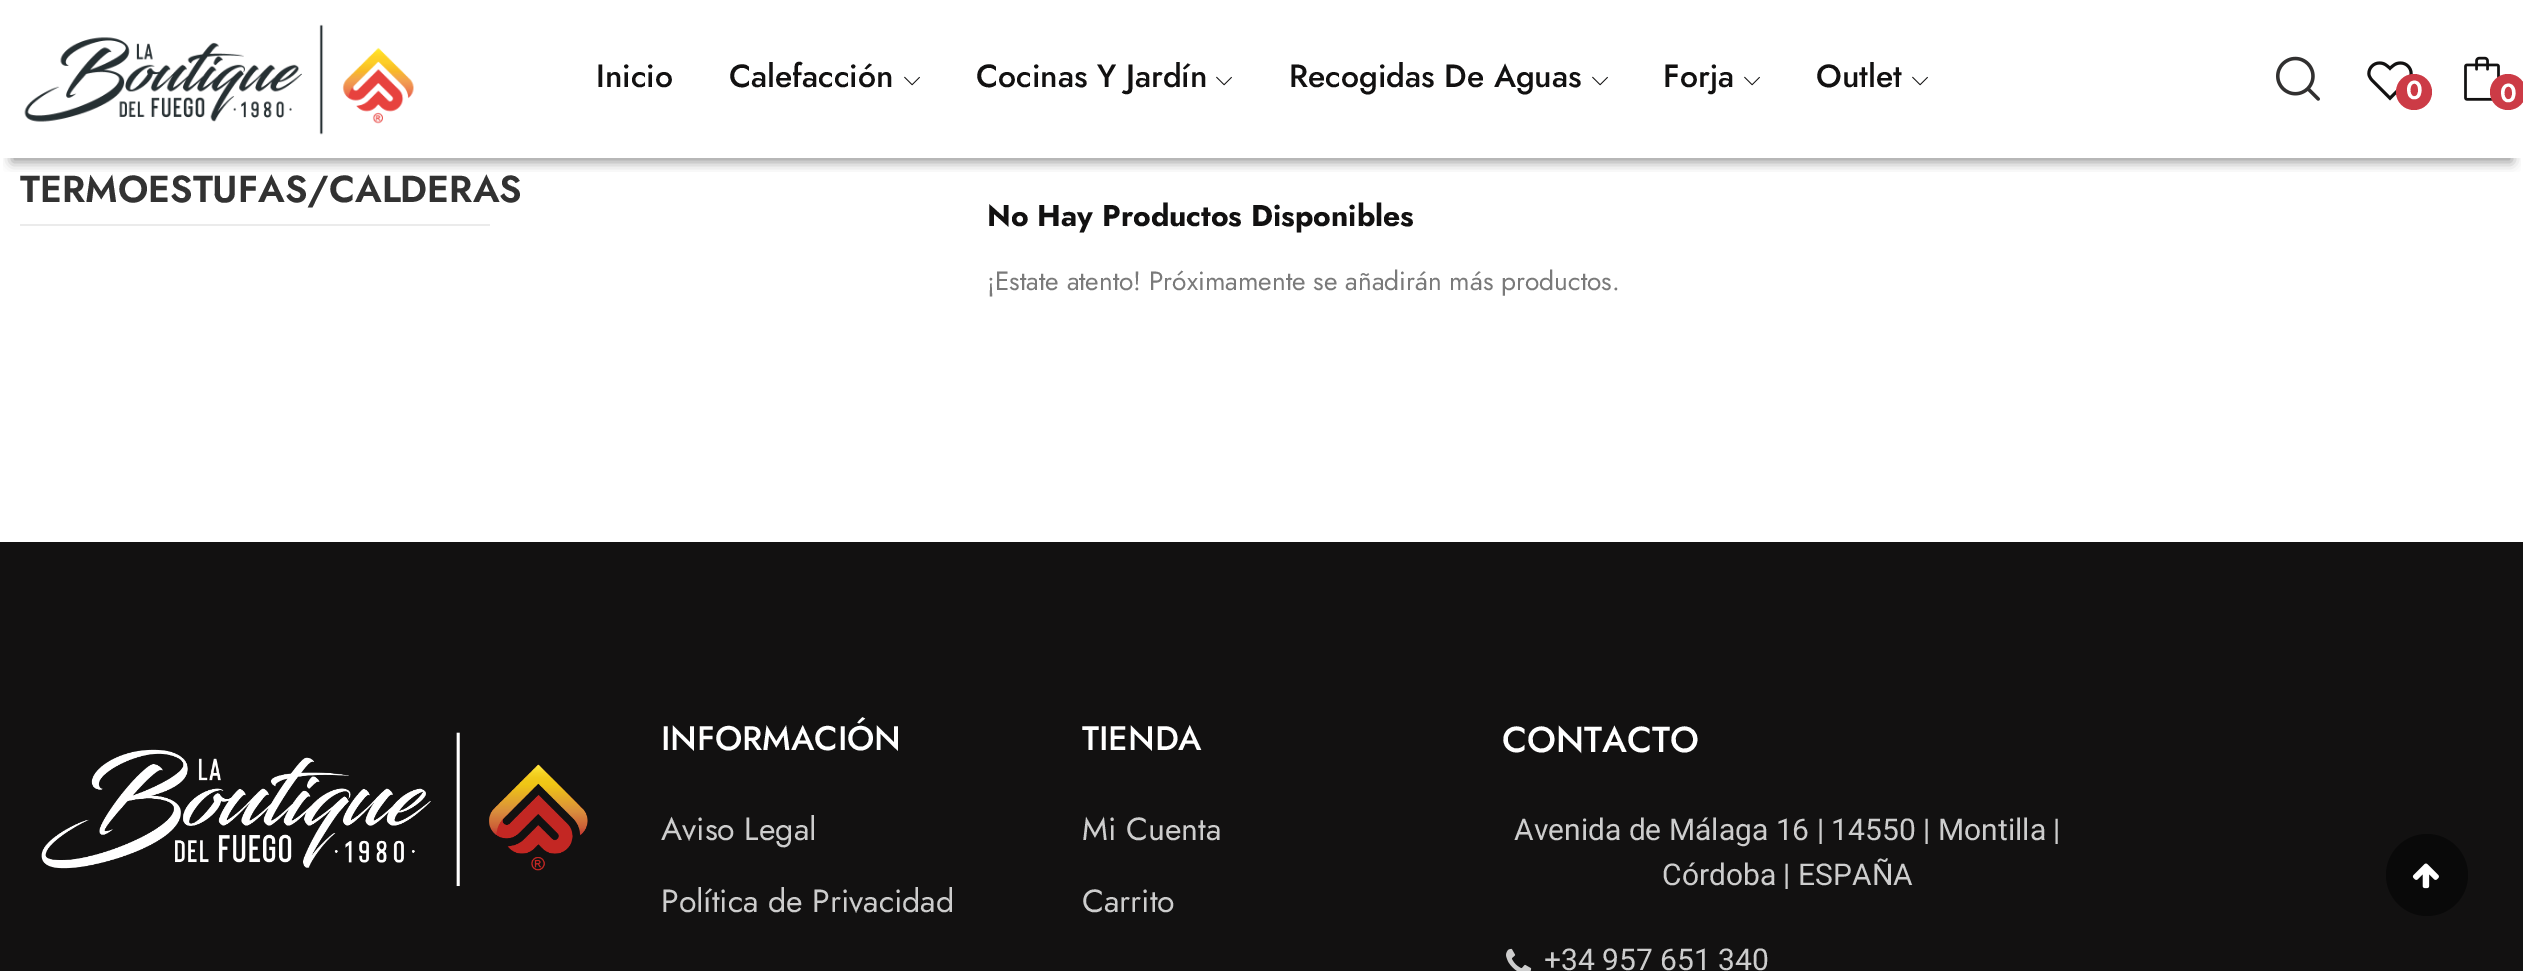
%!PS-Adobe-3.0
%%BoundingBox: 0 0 2523 971
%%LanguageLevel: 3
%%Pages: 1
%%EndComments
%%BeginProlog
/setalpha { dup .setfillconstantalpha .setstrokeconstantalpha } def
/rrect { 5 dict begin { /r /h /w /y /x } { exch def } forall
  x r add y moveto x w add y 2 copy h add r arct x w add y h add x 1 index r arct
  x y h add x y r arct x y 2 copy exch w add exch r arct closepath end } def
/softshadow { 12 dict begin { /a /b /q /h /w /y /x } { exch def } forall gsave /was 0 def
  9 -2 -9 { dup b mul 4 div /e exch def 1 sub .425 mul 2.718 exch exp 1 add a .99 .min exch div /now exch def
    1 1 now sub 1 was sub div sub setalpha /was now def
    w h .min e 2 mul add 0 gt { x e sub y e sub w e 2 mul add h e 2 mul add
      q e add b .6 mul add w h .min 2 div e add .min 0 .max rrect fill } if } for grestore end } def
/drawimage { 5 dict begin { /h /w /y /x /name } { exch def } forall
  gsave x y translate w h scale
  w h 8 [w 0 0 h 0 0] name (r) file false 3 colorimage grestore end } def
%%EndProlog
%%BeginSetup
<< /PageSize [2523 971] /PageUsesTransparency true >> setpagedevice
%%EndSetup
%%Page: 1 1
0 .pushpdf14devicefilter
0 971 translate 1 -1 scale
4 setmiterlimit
1 setgray
0 0 2523 971 rectfill
gsave
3 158 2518 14 rectclip
0 setgray
12 28 2500 134 0 6 0.4 softshadow
grestore
(images/1.raw) 24 24 390 111 drawimage
(images/2.raw) 904 76 16 10 drawimage
(images/2.raw) 1216 76 16 10 drawimage
(images/2.raw) 1592 76 16 10 drawimage
(images/2.raw) 1744 76 16 10 drawimage
(images/2.raw) 1912 76 16 10 drawimage
(images/3.raw) 2276 56 44 45 drawimage
(images/4.raw) 2367 61 46 40 drawimage
0.8 0.231 0.275 setrgbcolor
newpath 2414 92 18 0 360 arc closepath fill
(images/5.raw) 2464 56 36 45 drawimage
newpath 2508 92 18 0 360 arc closepath fill
0.922 setgray
20 224 470 2 rectfill
0.071 0.067 0.067 setrgbcolor
0 542 2523 429 rectfill
(images/6.raw) 41 732 547 155 drawimage
(images/7.raw) 1506 948 26 23 drawimage
0.035 setgray
newpath 2427 875 41 0 360 arc closepath fill
(images/8.raw) 2412 863 27 26 drawimage
/Jost-Medium [32 0 0 -32 0 0] selectfont
0.071 0.067 0.067 setrgbcolor
596 87 moveto (Inicio) show
729 87 moveto (Calefacción) show
976 87 moveto (Cocinas Y Jardín) show
1289 87 moveto (Recogidas De Aguas) show
1663 87 moveto (Forja) show
1816 87 moveto (Outlet) show
/Jost-SemiBold [26 0 0 -26 0 0] selectfont
1 setgray
2406 99 moveto (0) show
2500 102 moveto (0) show
/Jost-SemiBold [37.5 0 0 -37.5 0 0] selectfont
0.196 setgray
20 202 moveto (TERMOESTUFAS/CALDERAS) show
/Jost-Bold [30 0 0 -30 0 0] selectfont
0.071 0.067 0.067 setrgbcolor
987 226 moveto (No Hay Productos Disponibles) show
/Jost-Regular [26.25 0 0 -26.25 0 0] selectfont
0.478 setgray
987 290 moveto (¡Estate atento! Próximamente se añadirán más productos.) show
/Jost-Medium [34 0 0 -34 0 0] selectfont
1 setgray
661 750 moveto (INFORMACIÓN) show
/Jost-Regular [32 0 0 -32 0 0] selectfont
0.804 setgray
661 840 moveto (Aviso Legal) show
661 912 moveto (Política de Privacidad) show
/Jost-Medium [34 0 0 -34 0 0] selectfont
1 setgray
1082 750 moveto (TIENDA) show
/Jost-Regular [32 0 0 -32 0 0] selectfont
0.804 setgray
1082 840 moveto (Mi Cuenta) show
1082 912 moveto (Carrito) show
/Jost-Medium [36 0 0 -36 0 0] selectfont
1 setgray
1502 752 moveto (CONTACTO) show
/Roboto-Regular [30 0 0 -30 0 0] selectfont
0.804 setgray
1514 840 moveto (Avenida de Málaga 16 | 14550 | Montilla |) show
1662 885 moveto (Córdoba | ESPAÑA) show
1544 970 moveto (+34 957 651 340) show
.poppdf14devicefilter showpage
%%EOF
